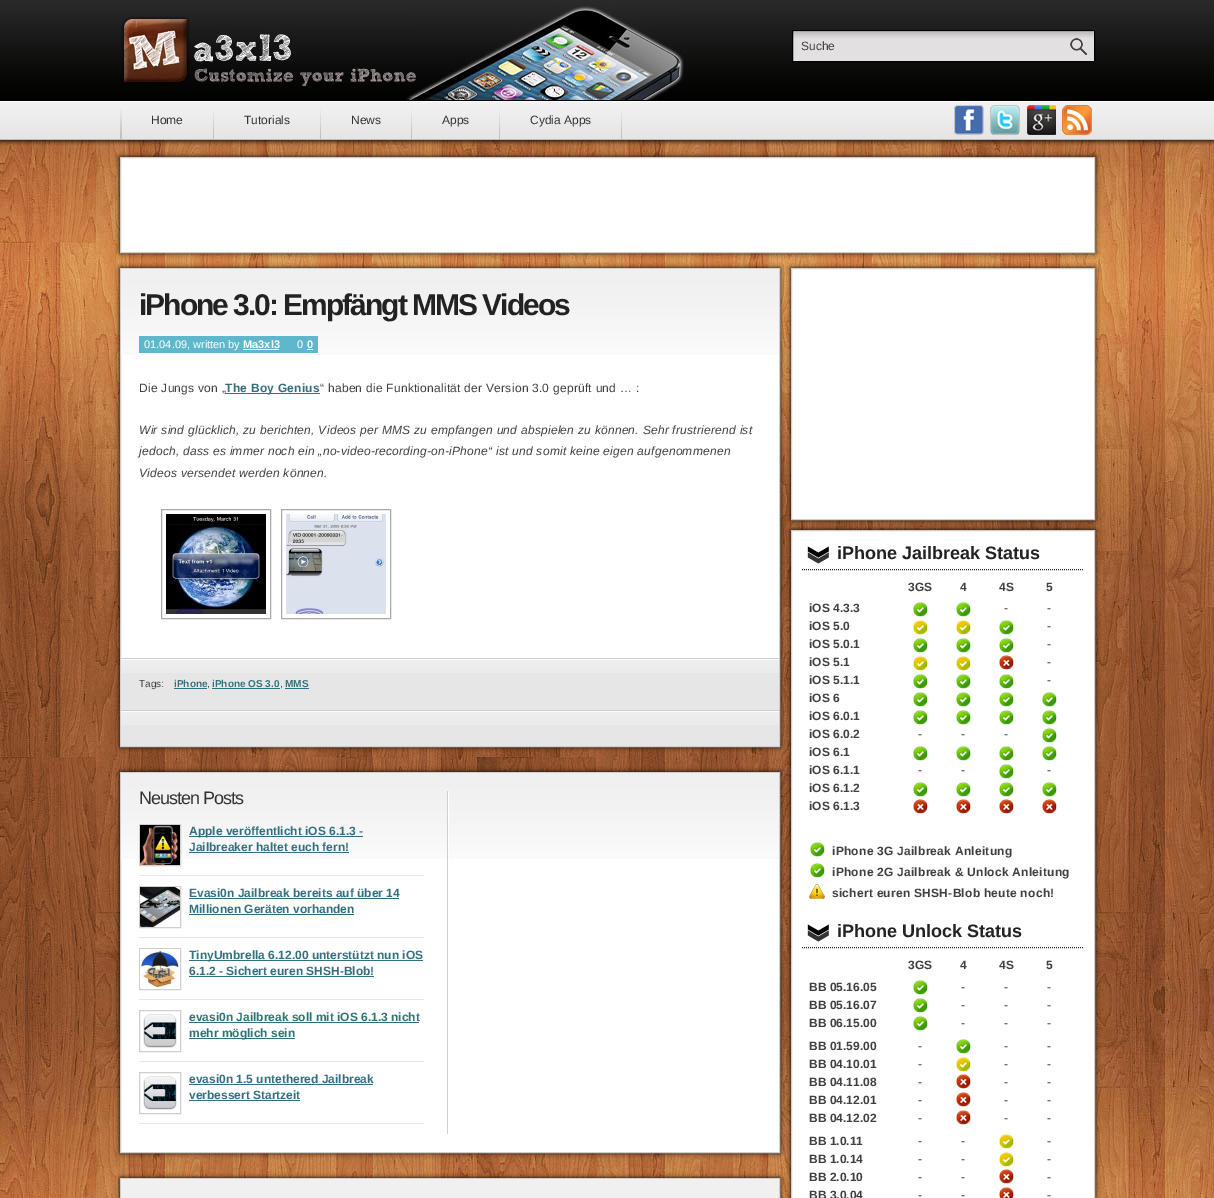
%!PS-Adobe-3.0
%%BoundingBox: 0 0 1214 1198
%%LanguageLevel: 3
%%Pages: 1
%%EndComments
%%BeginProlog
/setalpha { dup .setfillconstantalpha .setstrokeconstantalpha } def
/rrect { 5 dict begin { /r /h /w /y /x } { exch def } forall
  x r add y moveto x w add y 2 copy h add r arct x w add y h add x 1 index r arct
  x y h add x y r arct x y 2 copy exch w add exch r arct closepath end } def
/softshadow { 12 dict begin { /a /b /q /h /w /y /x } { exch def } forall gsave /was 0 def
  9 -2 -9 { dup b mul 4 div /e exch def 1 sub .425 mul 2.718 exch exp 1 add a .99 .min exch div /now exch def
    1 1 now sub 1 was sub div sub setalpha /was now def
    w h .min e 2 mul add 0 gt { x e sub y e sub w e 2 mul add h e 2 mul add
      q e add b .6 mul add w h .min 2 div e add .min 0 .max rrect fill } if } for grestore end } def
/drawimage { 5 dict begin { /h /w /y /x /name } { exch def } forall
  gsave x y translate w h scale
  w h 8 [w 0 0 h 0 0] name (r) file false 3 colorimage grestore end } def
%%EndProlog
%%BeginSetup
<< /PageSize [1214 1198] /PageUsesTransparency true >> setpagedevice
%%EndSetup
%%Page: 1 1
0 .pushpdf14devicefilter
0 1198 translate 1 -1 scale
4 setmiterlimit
1 setgray
0 0 1214 1198 rectfill
(images/1.raw) 0 140 1214 1058 drawimage
(images/2.raw) 0 0 1214 146 drawimage
(images/3.raw) 405 6 279 94 drawimage
(images/4.raw) 120 15 296 72 drawimage
(images/5.raw) 793 31 301 30 drawimage
0 setgray
792.5 30.5 302 31 rectstroke
(images/6.raw) 1070 38 17 17 drawimage
(images/7.raw) 120 109 2 30 drawimage
(images/8.raw) 213 109 1 30 drawimage
(images/8.raw) 320 109 1 30 drawimage
(images/8.raw) 411 109 1 30 drawimage
(images/8.raw) 499 109 1 30 drawimage
(images/8.raw) 621 109 1 30 drawimage
(images/9.raw) 954 105 30 30 drawimage
(images/10.raw) 990 105 30 30 drawimage
(images/11.raw) 1027 105 29 30 drawimage
(images/12.raw) 1062 105 30 30 drawimage
120 157 975 96 0 2.5 1 softshadow
1 setgray
newpath 120.5 157.5 moveto 1094.5 157.5 lineto 1094.5 252.5 lineto 120.5 252.5 lineto closepath gsave fill grestore
0.812 setgray
stroke
0 setgray
120 268 660 479 0 2.5 1 softshadow
1 setgray
121 355 658 303 rectfill
0.812 setgray
120.5 268.5 659 478 rectstroke
(images/13.raw) 121 269 658 86 drawimage
0.369 0.718 0.796 setrgbcolor
139 336 179 17 rectfill
1 setgray
243 349 36 1 rectfill
307 349 6 1 rectfill
0.2 0.439 0.494 setrgbcolor
225 393 95 1 rectfill
0.663 setgray
161.5 509.5 109 109 rectstroke
(images/14.raw) 166 514 100 100 drawimage
281.5 509.5 109 109 rectstroke
(images/15.raw) 286 514 100 100 drawimage
0.902 setgray
121 673 658 37 rectfill
(images/16.raw) 121 658 658 15 drawimage
0.2 0.439 0.494 setrgbcolor
174 688 33 1 rectfill
212 688 68 1 rectfill
285 688 24 1 rectfill
0.902 setgray
121 725 658 21 rectfill
(images/16.raw) 121 710 658 15 drawimage
0 setgray
120 772 660 381 0 2.5 1 softshadow
1 setgray
121 859 658 293 rectfill
0.812 setgray
120.5 772.5 659 380 rectstroke
(images/13.raw) 121 773 658 86 drawimage
(images/17.raw) 447 791 2 343 drawimage
0.906 setgray
139 875 285 1 rectfill
0.812 setgray
139.5 824.5 41 41 rectstroke
(images/18.raw) 140 825 40 40 drawimage
0.2 0.439 0.494 setrgbcolor
189 836 174 1 rectfill
189 852 160 1 rectfill
0.906 setgray
139 937 285 1 rectfill
0.812 setgray
139.5 886.5 41 41 rectstroke
(images/19.raw) 140 887 40 40 drawimage
0.2 0.439 0.494 setrgbcolor
189 898 210 1 rectfill
189 914 165 1 rectfill
0.906 setgray
139 999 285 1 rectfill
0.812 setgray
139.5 948.5 41 41 rectstroke
(images/20.raw) 140 949 40 39 drawimage
0.2 0.439 0.494 setrgbcolor
189 960 234 1 rectfill
189 976 185 1 rectfill
0.906 setgray
139 1061 285 1 rectfill
0.812 setgray
139.5 1010.5 41 41 rectstroke
(images/21.raw) 143 1014 34 34 drawimage
0.2 0.439 0.494 setrgbcolor
189 1022 230 1 rectfill
189 1038 106 1 rectfill
0.906 setgray
139 1123 285 1 rectfill
0.812 setgray
139.5 1072.5 41 41 rectstroke
(images/21.raw) 143 1076 34 34 drawimage
0.2 0.439 0.494 setrgbcolor
189 1084 184 1 rectfill
189 1100 111 1 rectfill
0 setgray
120 1178 660 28 0 2.5 1 softshadow
0.812 setgray
120.5 1178.5 659 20 rectstroke
0.941 setgray
121 1179 658 19 rectfill
0 setgray
791 268 304 252 0 2.5 1 softshadow
1 setgray
newpath 791.5 268.5 moveto 1094.5 268.5 lineto 1094.5 519.5 lineto 791.5 519.5 lineto closepath gsave fill grestore
0.812 setgray
stroke
0 setgray
791 530 304 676 0 2.5 1 softshadow
1 setgray
newpath 791.5 530.5 moveto 1094.5 530.5 lineto 1094.5 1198.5 lineto 791.5 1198.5 lineto closepath gsave fill grestore
0.812 setgray
stroke
0.133 setgray
[1 1] 0 setdash
newpath 802 569.5 moveto 1084 569.5 lineto stroke
(images/22.raw) 807 546 22 18 drawimage
(images/23.raw) 913 602 15 15 drawimage
(images/23.raw) 956 602 15 15 drawimage
(images/24.raw) 913 620 15 15 drawimage
(images/24.raw) 956 620 15 15 drawimage
(images/23.raw) 999 620 15 15 drawimage
(images/23.raw) 913 638 15 15 drawimage
(images/23.raw) 956 638 15 15 drawimage
(images/23.raw) 999 638 15 15 drawimage
(images/24.raw) 913 656 15 15 drawimage
(images/24.raw) 956 656 15 15 drawimage
(images/25.raw) 999 655 15 15 drawimage
(images/23.raw) 913 674 15 15 drawimage
(images/23.raw) 956 674 15 15 drawimage
(images/23.raw) 999 674 15 15 drawimage
(images/23.raw) 913 692 15 15 drawimage
(images/23.raw) 956 692 15 15 drawimage
(images/23.raw) 999 692 15 15 drawimage
(images/23.raw) 1042 692 15 15 drawimage
(images/23.raw) 913 710 15 15 drawimage
(images/23.raw) 956 710 15 15 drawimage
(images/23.raw) 999 710 15 15 drawimage
(images/23.raw) 1042 710 15 15 drawimage
(images/23.raw) 1042 728 15 15 drawimage
(images/23.raw) 913 746 15 15 drawimage
(images/23.raw) 956 746 15 15 drawimage
(images/23.raw) 999 746 15 15 drawimage
(images/23.raw) 1042 746 15 15 drawimage
(images/23.raw) 999 764 15 15 drawimage
(images/23.raw) 913 782 15 15 drawimage
(images/23.raw) 956 782 15 15 drawimage
(images/23.raw) 999 782 15 15 drawimage
(images/23.raw) 1042 782 15 15 drawimage
(images/25.raw) 913 799 15 15 drawimage
(images/25.raw) 956 799 15 15 drawimage
(images/25.raw) 999 799 15 15 drawimage
(images/25.raw) 1042 799 15 15 drawimage
(images/23.raw) 810 842 15 15 drawimage
(images/23.raw) 810 863 15 15 drawimage
(images/26.raw) 809 884 16 15 drawimage
newpath 802 947.5 moveto 1084 947.5 lineto stroke
(images/22.raw) 807 924 22 18 drawimage
(images/23.raw) 913 980 15 15 drawimage
(images/23.raw) 913 998 15 15 drawimage
(images/23.raw) 913 1016 15 15 drawimage
(images/23.raw) 956 1039 15 15 drawimage
(images/24.raw) 956 1057 15 15 drawimage
(images/25.raw) 956 1074 15 15 drawimage
(images/25.raw) 956 1092 15 15 drawimage
(images/25.raw) 956 1110 15 15 drawimage
(images/24.raw) 999 1134 15 15 drawimage
(images/24.raw) 999 1152 15 15 drawimage
(images/25.raw) 999 1169 15 15 drawimage
(images/27.raw) 999 1187 15 11 drawimage
/LiberationSans-Regular [12 0 0 -12 0 0] selectfont
0.251 setgray
801 50 moveto (Suche) show
0.2 setgray
151 124 moveto (Home) show
244 124 moveto (Tutorials) show
351 124 moveto (News) show
442 124 moveto (Apps) show
530 124 moveto (Cydia Apps) show
/LiberationSans-Bold [30 0 0 -30 0 0] selectfont
0.133 setgray
139 315 moveto -2 0 (iPhone 3.0: Empfängt MMS Videos) ashow
/LiberationSans-Regular [11 0 0 -11 0 0] selectfont
1 setgray
144 348 moveto (01.04.09, written by) show
/LiberationSans-Bold [11 0 0 -11 0 0] selectfont
243 348 moveto (Ma3xl3) show
/LiberationSans-Regular [11 0 0 -11 0 0] selectfont
297 348 moveto (0) show
/LiberationSans-Bold [11 0 0 -11 0 0] selectfont
307 348 moveto (0) show
/LiberationSans-Regular [12 0 0 -12 0 0] selectfont
0.251 setgray
139 392 moveto 0.24 0 (Die Jungs von „) ashow
/LiberationSans-Bold [12 0 0 -12 0 0] selectfont
0.2 0.439 0.494 setrgbcolor
225 392 moveto 0.24 0 (The Boy Genius) ashow
/LiberationSans-Regular [12 0 0 -12 0 0] selectfont
0.251 setgray
320 392 moveto 0.24 0 (“ haben die Funktionalität der Version 3.0 geprüft und … :) ashow
/LiberationSans-Italic [12 0 0 -12 0 0] selectfont
139 434 moveto 0.24 0 (Wir sind glücklich, zu berichten, Videos per MMS zu empfangen und abspielen zu können. Sehr frustrierend ist) ashow
139 455 moveto 0.24 0 (jedoch, dass es immer noch ein „no-video-recording-on-iPhone“ ist und somit keine eigen aufgenommenen) ashow
139 477 moveto 0.24 0 (Videos versendet werden können.) ashow
/LiberationSans-Regular [10 0 0 -10 0 0] selectfont
139 687 moveto (Tags:) show
/LiberationSans-Bold [10 0 0 -10 0 0] selectfont
0.2 0.439 0.494 setrgbcolor
174 687 moveto (iPhone) show
/LiberationSans-Regular [10 0 0 -10 0 0] selectfont
0.251 setgray
207 687 moveto (,) show
/LiberationSans-Bold [10 0 0 -10 0 0] selectfont
0.2 0.439 0.494 setrgbcolor
212 687 moveto (iPhone OS 3.0) show
/LiberationSans-Regular [10 0 0 -10 0 0] selectfont
0.251 setgray
280 687 moveto (,) show
/LiberationSans-Bold [10 0 0 -10 0 0] selectfont
0.2 0.439 0.494 setrgbcolor
285 687 moveto (MMS) show
/LiberationSans-Regular [18 0 0 -18 0 0] selectfont
0.2 setgray
139 804 moveto -1 0 (Neusten Posts) ashow
/LiberationSans-Bold [12 0 0 -12 0 0] selectfont
0.2 0.439 0.494 setrgbcolor
189 835 moveto (Apple veröffentlicht iOS 6.1.3 -) show
189 851 moveto (Jailbreaker haltet euch fern!) show
189 897 moveto (Evasi0n Jailbreak bereits auf über 14) show
189 913 moveto (Millionen Geräten vorhanden) show
189 959 moveto (TinyUmbrella 6.12.00 unterstützt nun iOS) show
189 975 moveto (6.1.2 - Sichert euren SHSH-Blob!) show
189 1021 moveto (evasi0n Jailbreak soll mit iOS 6.1.3 nicht) show
189 1037 moveto (mehr möglich sein) show
189 1083 moveto (evasi0n 1.5 untethered Jailbreak) show
189 1099 moveto (verbessert Startzeit) show
/LiberationSans-Bold [18 0 0 -18 0 0] selectfont
0.133 setgray
837 559 moveto (iPhone Jailbreak Status) show
/LiberationSans-Bold [12 0 0 -12 0 0] selectfont
0.251 setgray
908 591 moveto (3GS) show
960 591 moveto (4) show
999 591 moveto (4S) show
1046 591 moveto (5) show
809 612 moveto (iOS 4.3.3) show
/LiberationSans-Regular [12 0 0 -12 0 0] selectfont
1004 612 moveto (-) show
1047 612 moveto (-) show
/LiberationSans-Bold [12 0 0 -12 0 0] selectfont
809 630 moveto (iOS 5.0) show
/LiberationSans-Regular [12 0 0 -12 0 0] selectfont
1047 630 moveto (-) show
/LiberationSans-Bold [12 0 0 -12 0 0] selectfont
809 648 moveto (iOS 5.0.1) show
/LiberationSans-Regular [12 0 0 -12 0 0] selectfont
1047 648 moveto (-) show
/LiberationSans-Bold [12 0 0 -12 0 0] selectfont
809 666 moveto (iOS 5.1) show
/LiberationSans-Regular [12 0 0 -12 0 0] selectfont
1047 666 moveto (-) show
/LiberationSans-Bold [12 0 0 -12 0 0] selectfont
809 684 moveto (iOS 5.1.1) show
/LiberationSans-Regular [12 0 0 -12 0 0] selectfont
1047 684 moveto (-) show
/LiberationSans-Bold [12 0 0 -12 0 0] selectfont
809 702 moveto (iOS 6) show
809 720 moveto (iOS 6.0.1) show
809 738 moveto (iOS 6.0.2) show
/LiberationSans-Regular [12 0 0 -12 0 0] selectfont
918 738 moveto (-) show
961 738 moveto (-) show
1004 738 moveto (-) show
/LiberationSans-Bold [12 0 0 -12 0 0] selectfont
809 756 moveto (iOS 6.1) show
809 774 moveto (iOS 6.1.1) show
/LiberationSans-Regular [12 0 0 -12 0 0] selectfont
918 774 moveto (-) show
961 774 moveto (-) show
1047 774 moveto (-) show
/LiberationSans-Bold [12 0 0 -12 0 0] selectfont
809 792 moveto (iOS 6.1.2) show
809 810 moveto (iOS 6.1.3) show
832 855 moveto 0.24 0 (iPhone 3G Jailbreak Anleitung) ashow
832 876 moveto 0.24 0 (iPhone 2G Jailbreak & Unlock Anleitung) ashow
832 897 moveto 0.24 0 (sichert euren SHSH-Blob heute noch!) ashow
/LiberationSans-Bold [18 0 0 -18 0 0] selectfont
0.133 setgray
837 937 moveto (iPhone Unlock Status) show
/LiberationSans-Bold [12 0 0 -12 0 0] selectfont
0.251 setgray
908 969 moveto (3GS) show
960 969 moveto (4) show
999 969 moveto (4S) show
1046 969 moveto (5) show
809 991 moveto (BB 05.16.05) show
/LiberationSans-Regular [12 0 0 -12 0 0] selectfont
961 991 moveto (-) show
1004 991 moveto (-) show
1047 991 moveto (-) show
/LiberationSans-Bold [12 0 0 -12 0 0] selectfont
809 1009 moveto (BB 05.16.07) show
/LiberationSans-Regular [12 0 0 -12 0 0] selectfont
961 1009 moveto (-) show
1004 1009 moveto (-) show
1047 1009 moveto (-) show
/LiberationSans-Bold [12 0 0 -12 0 0] selectfont
809 1027 moveto (BB 06.15.00) show
/LiberationSans-Regular [12 0 0 -12 0 0] selectfont
961 1027 moveto (-) show
1004 1027 moveto (-) show
1047 1027 moveto (-) show
/LiberationSans-Bold [12 0 0 -12 0 0] selectfont
809 1050 moveto (BB 01.59.00) show
/LiberationSans-Regular [12 0 0 -12 0 0] selectfont
918 1050 moveto (-) show
1004 1050 moveto (-) show
1047 1050 moveto (-) show
/LiberationSans-Bold [12 0 0 -12 0 0] selectfont
809 1068 moveto (BB 04.10.01) show
/LiberationSans-Regular [12 0 0 -12 0 0] selectfont
918 1068 moveto (-) show
1004 1068 moveto (-) show
1047 1068 moveto (-) show
/LiberationSans-Bold [12 0 0 -12 0 0] selectfont
809 1086 moveto (BB 04.11.08) show
/LiberationSans-Regular [12 0 0 -12 0 0] selectfont
918 1086 moveto (-) show
1004 1086 moveto (-) show
1047 1086 moveto (-) show
/LiberationSans-Bold [12 0 0 -12 0 0] selectfont
809 1104 moveto (BB 04.12.01) show
/LiberationSans-Regular [12 0 0 -12 0 0] selectfont
918 1104 moveto (-) show
1004 1104 moveto (-) show
1047 1104 moveto (-) show
/LiberationSans-Bold [12 0 0 -12 0 0] selectfont
809 1122 moveto (BB 04.12.02) show
/LiberationSans-Regular [12 0 0 -12 0 0] selectfont
918 1122 moveto (-) show
1004 1122 moveto (-) show
1047 1122 moveto (-) show
/LiberationSans-Bold [12 0 0 -12 0 0] selectfont
809 1145 moveto (BB 1.0.11) show
/LiberationSans-Regular [12 0 0 -12 0 0] selectfont
918 1145 moveto (-) show
961 1145 moveto (-) show
1047 1145 moveto (-) show
/LiberationSans-Bold [12 0 0 -12 0 0] selectfont
809 1163 moveto (BB 1.0.14) show
/LiberationSans-Regular [12 0 0 -12 0 0] selectfont
918 1163 moveto (-) show
961 1163 moveto (-) show
1047 1163 moveto (-) show
/LiberationSans-Bold [12 0 0 -12 0 0] selectfont
809 1181 moveto (BB 2.0.10) show
/LiberationSans-Regular [12 0 0 -12 0 0] selectfont
918 1181 moveto (-) show
961 1181 moveto (-) show
1047 1181 moveto (-) show
/LiberationSans-Bold [12 0 0 -12 0 0] selectfont
809 1199 moveto (BB 3.0.04) show
/LiberationSans-Regular [12 0 0 -12 0 0] selectfont
918 1199 moveto (-) show
961 1199 moveto (-) show
1047 1199 moveto (-) show
.poppdf14devicefilter showpage
%%EOF
